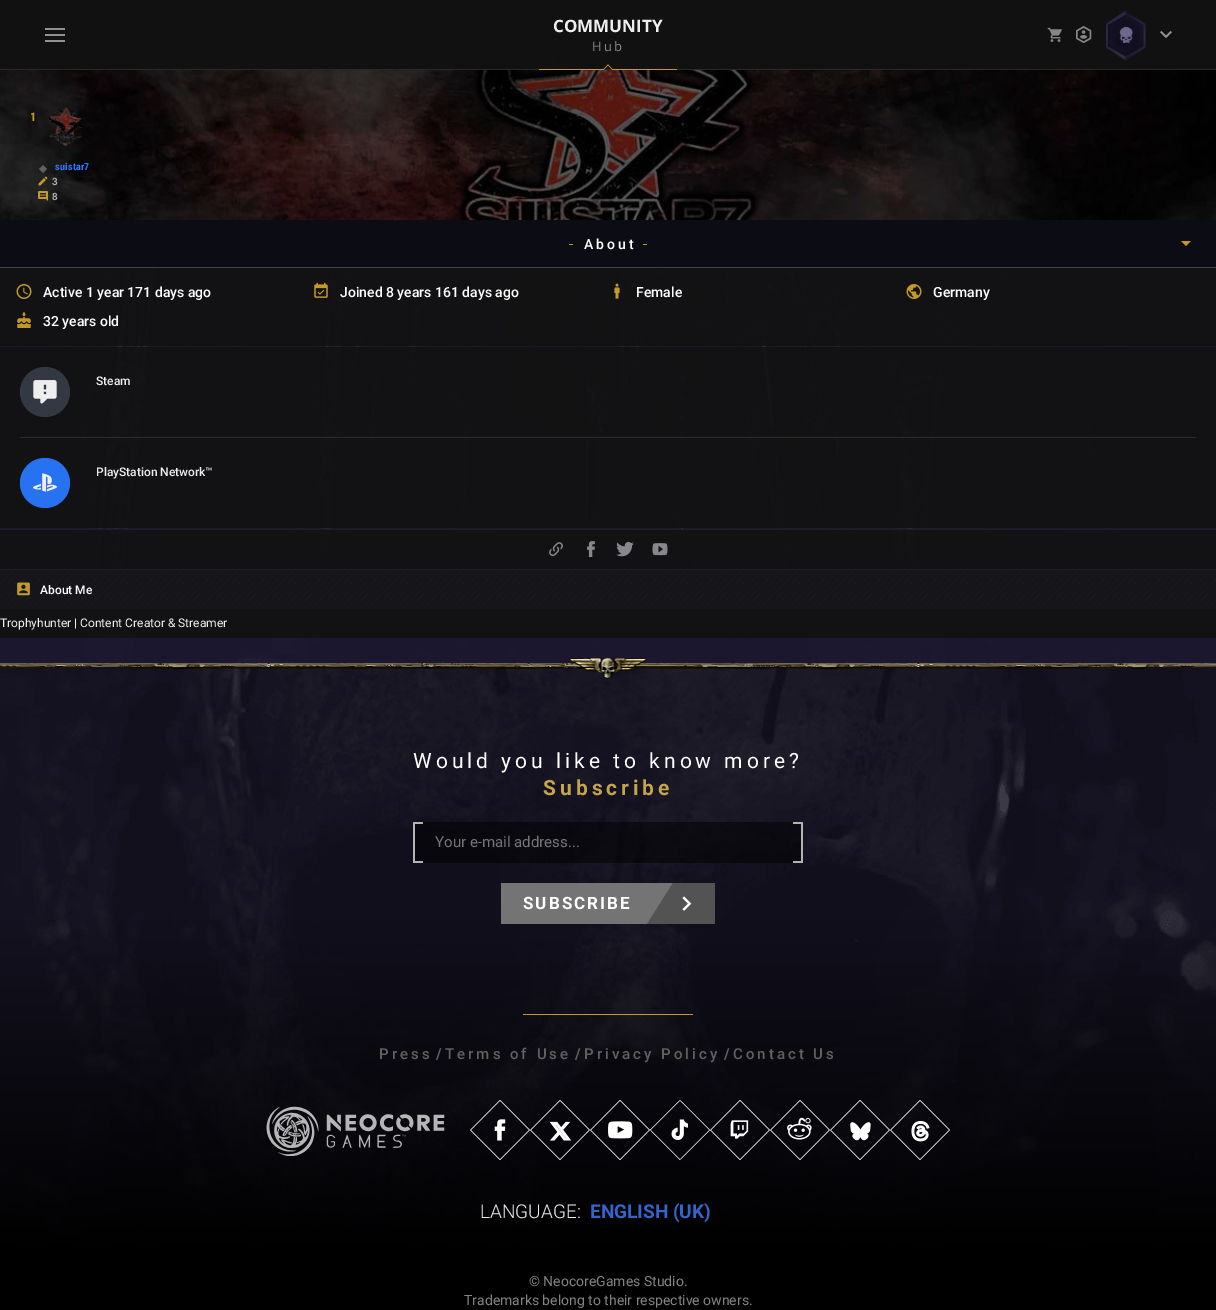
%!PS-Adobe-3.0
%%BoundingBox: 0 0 1216 1310
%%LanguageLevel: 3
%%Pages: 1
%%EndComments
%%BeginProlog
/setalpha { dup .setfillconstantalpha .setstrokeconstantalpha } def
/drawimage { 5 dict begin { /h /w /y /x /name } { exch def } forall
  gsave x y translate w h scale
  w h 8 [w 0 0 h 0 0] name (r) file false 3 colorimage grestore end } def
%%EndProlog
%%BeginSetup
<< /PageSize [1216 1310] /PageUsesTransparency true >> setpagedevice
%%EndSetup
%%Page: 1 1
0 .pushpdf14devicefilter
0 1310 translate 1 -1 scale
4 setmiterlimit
0.106 0.09 0.184 setrgbcolor
0 0 1216 1310 rectfill
(images/6.raw) 0 0 1128 668 drawimage
0.98 setalpha
0.067 setgray
0 0 1216 69 rectfill
1 setalpha
0.161 setgray
0 69 1216 1 rectfill
0.569 setgray
45 28 20 2 rectfill
45 34 20 2 rectfill
45 40 20 2 rectfill
0.765 0.604 0.165 setrgbcolor
newpath 602.5 70 moveto 608 64.5 lineto 608.5 65 lineto 603 70.5 lineto closepath fill
newpath 607.5 65 moveto 608 64.5 lineto 613.5 70 lineto 613 70.5 lineto closepath fill
612 69 65 1 rectfill
539 69 65 1 rectfill
(images/1.raw) 1047 27 15 15 drawimage
(images/2.raw) 1076 26 16 17 drawimage
(images/4.raw) 1108 14 36 42 drawimage
(images/3.raw) 1106 10 40 50 drawimage
(images/5.raw) 1160 31 12 7 drawimage
(images/7.raw) 0 70 1216 150 drawimage
(images/8.raw) 49 107 33 39 drawimage
0.38 setgray
newpath 43 165 moveto 47 169 lineto 43 173 lineto 39 169 lineto closepath fill
(images/9.raw) 38 176 10 10 drawimage
(images/10.raw) 38 191 10 10 drawimage
0.047 0.047 0.078 setrgbcolor
0 220 1216 47 rectfill
0.255 0.255 0.278 setrgbcolor
0 267 1216 1 rectfill
0.765 0.604 0.165 setrgbcolor
569 244 4 1 rectfill
643 244 4 1 rectfill
newpath 1181 241 moveto 1191 241 lineto 1186 246 lineto closepath fill
0.9 setalpha
0.067 setgray
0 268 1216 78 rectfill
1 setalpha
(images/11.raw) 16 284 16 15 drawimage
(images/12.raw) 314 282 14 16 drawimage
(images/13.raw) 614 283 6 16 drawimage
(images/14.raw) 906 284 16 15 drawimage
(images/15.raw) 17 311 14 17 drawimage
0.9 setalpha
0 347 1216 181 rectfill
0.1 setalpha
1 setgray
20 437 1176 1 rectfill
1 setalpha
0.2 0.22 0.263 setrgbcolor
newpath 45 392 25 0 360 arc closepath fill
(images/16.raw) 33 380 24 24 drawimage
0.153 0.447 0.941 setrgbcolor
newpath 45 483 25 0 360 arc closepath fill
(images/17.raw) 33 473 24 19 drawimage
0.9 setalpha
0.067 setgray
0 530 1216 39 rectfill
1 setalpha
0.118 0.118 0.125 setrgbcolor
0 529 1216 1 rectfill
0 569 1216 1 rectfill
(images/18.raw) 549 542 14 14 drawimage
(images/19.raw) 587 541 8 16 drawimage
(images/20.raw) 616 541 18 16 drawimage
(images/21.raw) 652 543 16 13 drawimage
0.9 setalpha
0.067 setgray
0 609 1216 29 rectfill
1 setalpha
0.086 0.082 0.102 setrgbcolor
0 570 1216 39 rectfill
(images/22.raw) 0 570 1216 39 drawimage
(images/23.raw) 17 582 13 14 drawimage
(images/24.raw) 0 668 1216 642 drawimage
(images/25.raw) 0 658 1216 21 drawimage
0.5 setalpha
0 setgray
415 822 386 41 rectfill
1 setalpha
0.706 setgray
413 822 10 2 rectfill
413 861 10 2 rectfill
413 822 2 41 rectfill
793 822 10 2 rectfill
801 822 2 41 rectfill
793 861 10 2 rectfill
0.455 setgray
501 883 172 41 rectfill
0.325 setgray
newpath 673 924 moveto 647 924 lineto 673 883 lineto closepath fill
673 883 42 41 rectfill
(images/26.raw) 682 896 10 15 drawimage
0.765 0.604 0.165 setrgbcolor
523 1014 170 1 rectfill
(images/27.raw) 266 1106 179 50 drawimage
(images/28.raw) 470 1100 60 60 drawimage
(images/29.raw) 530 1100 60 60 drawimage
(images/30.raw) 590 1100 60 60 drawimage
(images/31.raw) 650 1100 60 60 drawimage
(images/32.raw) 710 1100 60 60 drawimage
(images/33.raw) 770 1100 60 60 drawimage
(images/34.raw) 830 1100 60 60 drawimage
(images/35.raw) 890 1100 60 60 drawimage
/OpenSans-Bold [17 0 0 -17 0 0] selectfont
0.933 setgray
553 32 moveto (COMMUNITY) show
/OpenSans-Regular [13 0 0 -13 0 0] selectfont
0.541 0.545 0.545 setrgbcolor
592 51 moveto 2 0 (Hub) ashow
/RobotoCondensed-Bold [12 0 0 -12 0 0] selectfont
0.765 0.604 0.165 setrgbcolor
30 121 moveto (1) show
/RobotoCondensed-Bold [10 0 0 -10 0 0] selectfont
0.161 0.475 1 setrgbcolor
55 170 moveto 0.25 0 (suistar7) ashow
/Roboto-SemiBold [10 0 0 -10 0 0] selectfont
0.698 0.698 0.71 setrgbcolor
52 185 moveto (3) show
52 200 moveto (8) show
/Roboto-Medium [14 0 0 -14 0 0] selectfont
1 setgray
584 249 moveto 3 0 (About) ashow
43 297 moveto (Active 1 year 171 days ago) show
340 297 moveto (Joined 8 years 161 days ago) show
636 297 moveto (Female) show
933 297 moveto (Germany) show
43 326 moveto (32 years old) show
/Roboto-Medium [12 0 0 -12 0 0] selectfont
0.933 setgray
96 385 moveto (Steam) show
96 476 moveto (PlayStation Network™) show
1 setgray
40 594 moveto (About Me) show
/Roboto-Regular [12 0 0 -12 0 0] selectfont
0.933 setgray
0 627 moveto (Trophyhunter | Content Creator & Streamer) show
/Roboto-Regular [21 0 0 -21 0 0] selectfont
1 setgray
413 768 moveto 4 0 (Would you like to know more?) ashow
/Roboto-Bold [21 0 0 -21 0 0] selectfont
0.773 0.643 0.294 setrgbcolor
543 795 moveto 4 0 (Subscribe) ashow
/Roboto-Regular [15 0 0 -15 0 0] selectfont
0.459 setgray
435 847 moveto (Your e-mail address...) show
/Roboto-Bold [17 0 0 -17 0 0] selectfont
1 setgray
523 909 moveto 2 0 (SUBSCRIBE) ashow
/Roboto-Medium [15 0 0 -15 0 0] selectfont
0.38 setgray
379 1059 moveto 3 0 (Press) ashow
/Roboto-Bold [15 0 0 -15 0 0] selectfont
436 1059 moveto (/) show
/Roboto-Medium [15 0 0 -15 0 0] selectfont
445 1059 moveto 3 0 (Terms of Use) ashow
/Roboto-Bold [15 0 0 -15 0 0] selectfont
575 1059 moveto (/) show
/Roboto-Medium [15 0 0 -15 0 0] selectfont
584 1059 moveto 3 0 (Privacy Policy) ashow
/Roboto-Bold [15 0 0 -15 0 0] selectfont
724 1059 moveto (/) show
/Roboto-Medium [15 0 0 -15 0 0] selectfont
733 1059 moveto 3 0 (Contact Us) ashow
/Roboto-Light [19 0 0 -19 0 0] selectfont
0.933 setgray
480 1218 moveto (LANGUAGE:) show
/Roboto-Bold [19 0 0 -19 0 0] selectfont
0.2 0.4 0.8 setrgbcolor
590 1218 moveto (ENGLISH \(UK\)) show
/Roboto-Regular [14 0 0 -14 0 0] selectfont
0.514 setgray
529 1286 moveto (© NeocoreGames Studio.) show
464 1305 moveto (Trademarks belong to their respective owners.) show
.poppdf14devicefilter showpage
%%EOF
